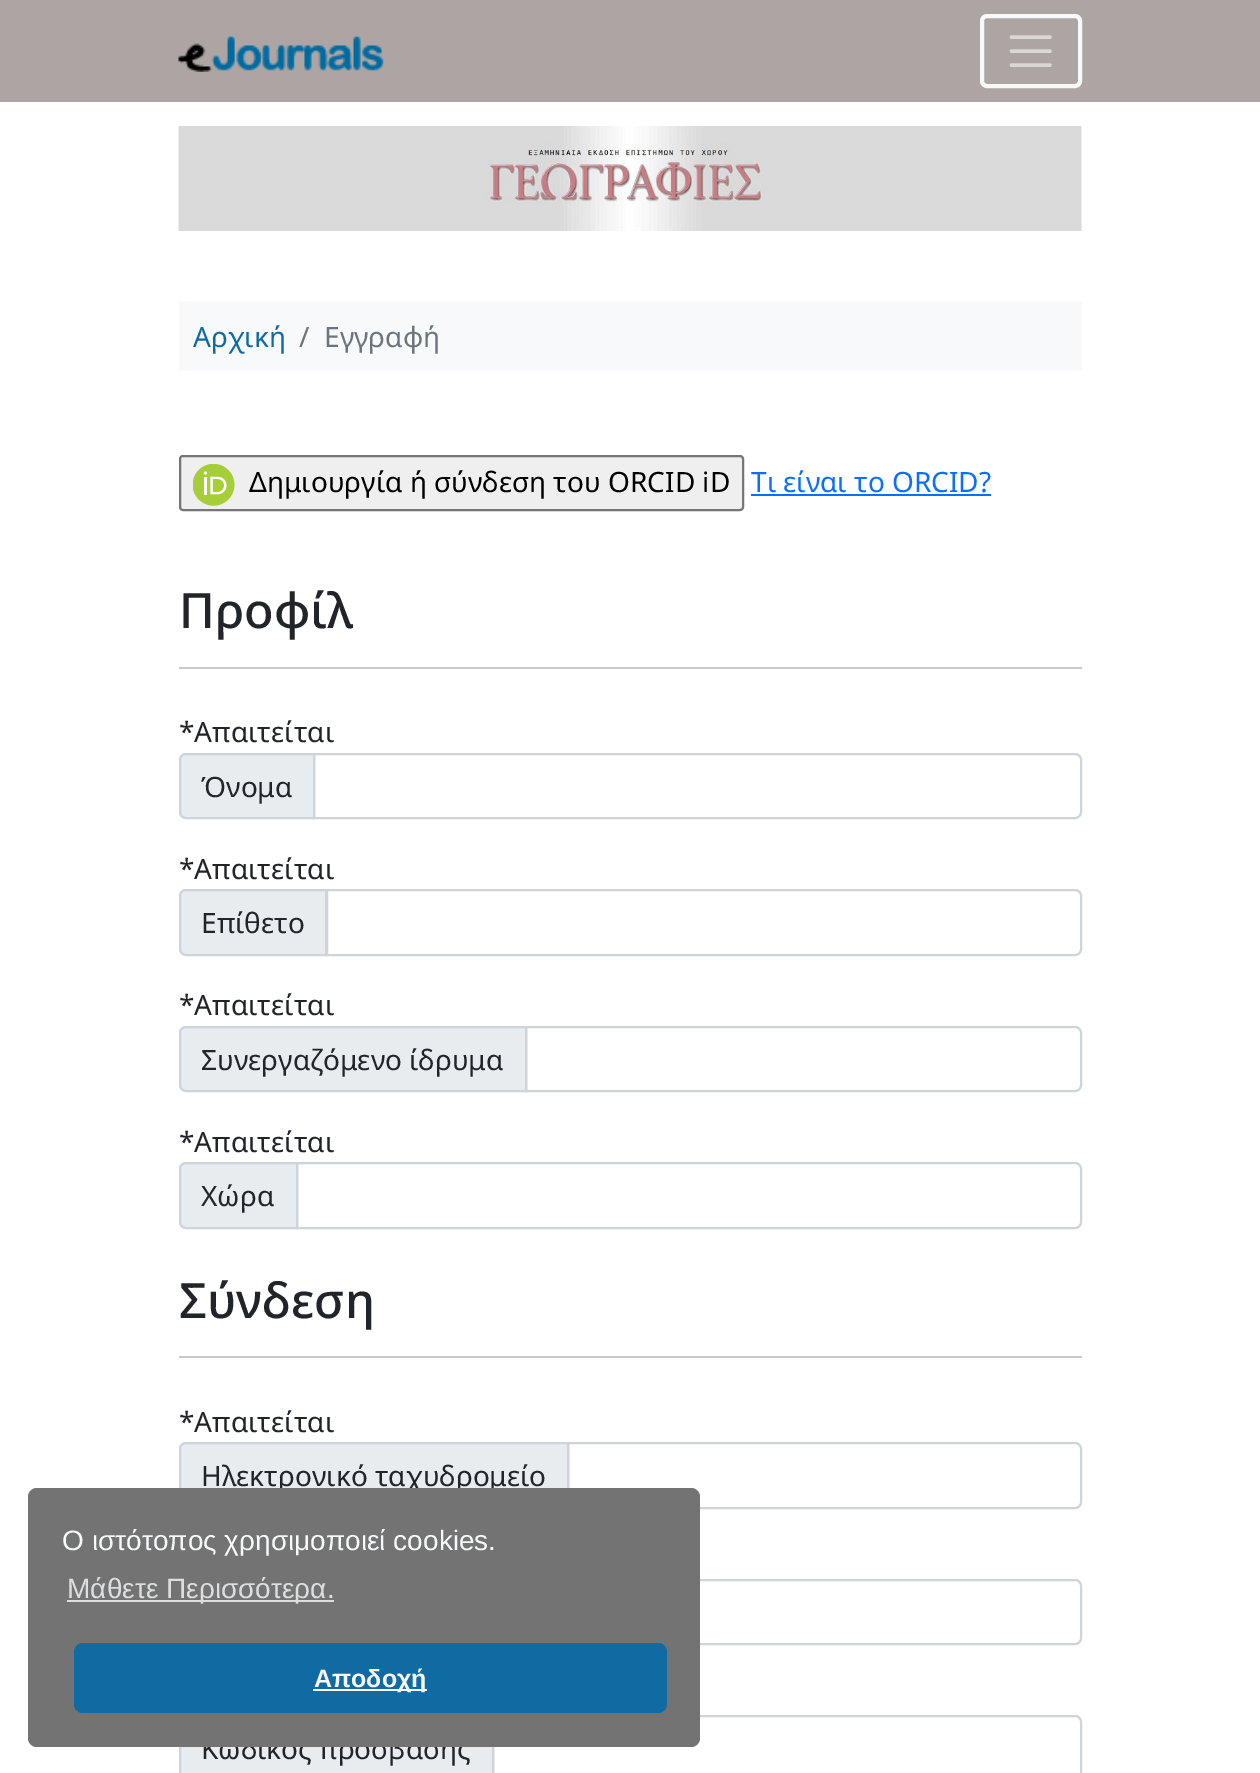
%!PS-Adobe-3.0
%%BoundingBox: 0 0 1260 1773
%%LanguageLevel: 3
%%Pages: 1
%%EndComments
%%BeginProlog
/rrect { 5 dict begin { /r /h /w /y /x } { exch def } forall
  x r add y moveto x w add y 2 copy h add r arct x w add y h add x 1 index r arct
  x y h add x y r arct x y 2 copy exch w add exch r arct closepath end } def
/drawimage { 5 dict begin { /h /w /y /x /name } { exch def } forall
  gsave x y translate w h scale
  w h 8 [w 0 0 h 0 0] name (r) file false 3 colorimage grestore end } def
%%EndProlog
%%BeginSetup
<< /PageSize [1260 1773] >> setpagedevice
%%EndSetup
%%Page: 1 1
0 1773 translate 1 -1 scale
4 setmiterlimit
1 setgray
0 0 1260 1773 rectfill
0.678 0.647 0.639 setrgbcolor
0 0 1260 102 rectfill
(images/1.raw) 178 36 206 36 drawimage
0.973 0.976 0.98 setrgbcolor
4 setlinewidth
982 16 98 70 5 rrect stroke
0.855 0.843 0.839 setrgbcolor
3.5 setlinewidth
1 setlinecap
newpath 1011.5 37 moveto 1050 37 lineto 1011.5 51 moveto 1050 51 lineto 1011.5 65 moveto 1050 65 lineto stroke
(images/2.raw) 178 126 904 105 drawimage
0.973 0.976 0.98 setrgbcolor
179 301 903 70 rectfill
0.937 setgray
180 456 563 54 3 rrect gsave fill grestore
0.463 setgray
2 setlinewidth
0 setlinecap
stroke
(images/3.raw) 193 464 42 42 drawimage
0.051 0.431 0.992 setrgbcolor
751 494 240 2 rectfill
0.784 0.788 0.792 setrgbcolor
179 667 903 2 rectfill
0.914 0.925 0.937 setrgbcolor
newpath 186 754 moveto 314 754 lineto 314 818 lineto 186 818 lineto 182.5 818 180 815.5 180 812 curveto 180 760 lineto 180 756.5 182.5 754 186 754 curveto closepath gsave fill grestore
0.808 0.831 0.855 setrgbcolor
stroke
newpath 314 754 moveto 1075 754 lineto 1078.5 754 1081 756.5 1081 760 curveto 1081 812 lineto 1081 815.5 1078.5 818 1075 818 curveto 314 818 lineto closepath stroke
0.914 0.925 0.937 setrgbcolor
newpath 186 890 moveto 326 890 lineto 326 955 lineto 186 955 lineto 182.5 955 180 952.5 180 949 curveto 180 896 lineto 180 892.5 182.5 890 186 890 curveto closepath gsave fill grestore
0.808 0.831 0.855 setrgbcolor
stroke
newpath 327 890 moveto 1075 890 lineto 1078.5 890 1081 892.5 1081 896 curveto 1081 949 lineto 1081 952.5 1078.5 955 1075 955 curveto 327 955 lineto closepath stroke
0.914 0.925 0.937 setrgbcolor
newpath 186 1027 moveto 526 1027 lineto 526 1091 lineto 186 1091 lineto 182.5 1091 180 1088.5 180 1085 curveto 180 1033 lineto 180 1029.5 182.5 1027 186 1027 curveto closepath gsave fill grestore
0.808 0.831 0.855 setrgbcolor
stroke
newpath 526 1027 moveto 1075 1027 lineto 1078.5 1027 1081 1029.5 1081 1033 curveto 1081 1085 lineto 1081 1088.5 1078.5 1091 1075 1091 curveto 526 1091 lineto closepath stroke
0.914 0.925 0.937 setrgbcolor
newpath 186 1163 moveto 297 1163 lineto 297 1228 lineto 186 1228 lineto 182.5 1228 180 1225.5 180 1222 curveto 180 1169 lineto 180 1165.5 182.5 1163 186 1163 curveto closepath gsave fill grestore
0.808 0.831 0.855 setrgbcolor
stroke
newpath 297 1163 moveto 1075 1163 lineto 1078.5 1163 1081 1165.5 1081 1169 curveto 1081 1222 lineto 1081 1225.5 1078.5 1228 1075 1228 curveto 297 1228 lineto closepath stroke
0.784 0.788 0.792 setrgbcolor
179 1356 903 2 rectfill
0.914 0.925 0.937 setrgbcolor
newpath 186 1443 moveto 568 1443 lineto 568 1508 lineto 186 1508 lineto 182.5 1508 180 1505.5 180 1502 curveto 180 1449 lineto 180 1445.5 182.5 1443 186 1443 curveto closepath gsave fill grestore
0.808 0.831 0.855 setrgbcolor
stroke
newpath 568 1443 moveto 1075 1443 lineto 1078.5 1443 1081 1445.5 1081 1449 curveto 1081 1502 lineto 1081 1505.5 1078.5 1508 1075 1508 curveto 568 1508 lineto closepath stroke
newpath 421 1580 moveto 1075 1580 lineto 1078.5 1580 1081 1582.5 1081 1586 curveto 1081 1638 lineto 1081 1641.5 1078.5 1644 1075 1644 curveto 421 1644 lineto closepath stroke
0.914 0.925 0.937 setrgbcolor
181 1747 311 26 rectfill
0.808 0.831 0.855 setrgbcolor
180 1716 313 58 rectstroke
newpath 493 1716 moveto 1075 1716 lineto 1078.5 1716 1081 1718.5 1081 1722 curveto 1081 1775 lineto 1081 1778.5 1078.5 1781 1075 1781 curveto 493 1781 lineto closepath stroke
/NotoSans-Regular [28 0 0 -28 0 0] selectfont
0.063 0.42 0.635 setrgbcolor
193 347 moveto (Αρχική) show
0.424 0.459 0.49 setrgbcolor
299 347 moveto (/) show
324 347 moveto (Εγγραφή) show
0 setgray
249 492 moveto (Δημιουργία ή σύνδεση του ΟRCID iD) show
0.051 0.431 0.992 setrgbcolor
751 492 moveto (Τι είναι το ORCID?) show
/NotoSans-Medium [48.5 0 0 -48.5 0 0] selectfont
0.129 0.145 0.161 setrgbcolor
179 628 moveto (Προφίλ) show
/NotoSans-Regular [28 0 0 -28 0 0] selectfont
179 742 moveto (*Απαιτείται) show
201 797 moveto (Όνομα) show
179 879 moveto (*Απαιτείται) show
201 933 moveto (Επίθετο) show
179 1015 moveto (*Απαιτείται) show
201 1070 moveto (Συνεργαζόμενο ίδρυμα) show
179 1152 moveto (*Απαιτείται) show
201 1206 moveto (Χώρα) show
/NotoSans-Medium [48.5 0 0 -48.5 0 0] selectfont
179 1318 moveto (Σύνδεση) show
/NotoSans-Regular [28 0 0 -28 0 0] selectfont
179 1432 moveto (*Απαιτείται) show
201 1486 moveto (Ηλεκτρονικό ταχυδρομείο) show
201 1759 moveto (Κωδικός πρόσβασης) show
0.451 setgray
28 1488 672 259 9 rrect fill
/LiberationSans-Regular [28 0 0 -28 0 0] selectfont
0.973 0.976 0.98 setrgbcolor
62 1550 moveto (Ο ιστότοπος χρησιμοποιεί cookies.) show
0.867 0.871 0.875 setrgbcolor
67 1600 267 2 rectfill
67 1598 moveto (Μάθετε Περισσότερα.) show
0.063 0.42 0.635 setrgbcolor
74 1643 593 70 9 rrect fill
0.973 0.976 0.98 setrgbcolor
313 1689 114 2 rectfill
/LiberationSans-Bold [25 0 0 -25 0 0] selectfont
314 1687 moveto (Αποδοχή) show
showpage
%%EOF
